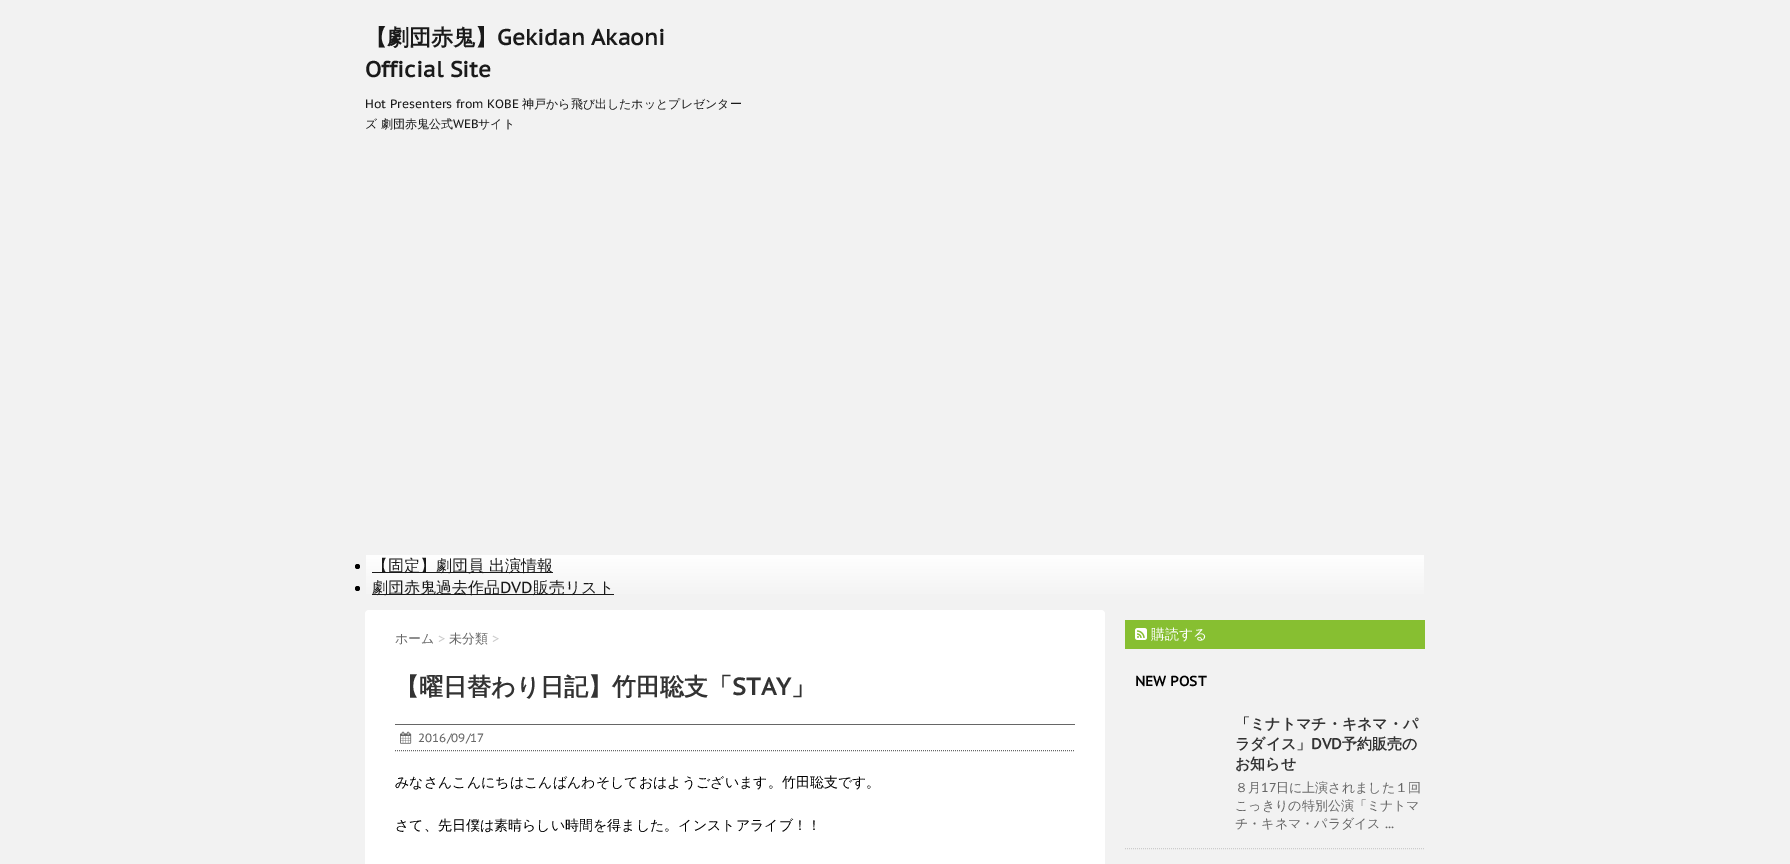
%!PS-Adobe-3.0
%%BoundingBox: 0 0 1790 864
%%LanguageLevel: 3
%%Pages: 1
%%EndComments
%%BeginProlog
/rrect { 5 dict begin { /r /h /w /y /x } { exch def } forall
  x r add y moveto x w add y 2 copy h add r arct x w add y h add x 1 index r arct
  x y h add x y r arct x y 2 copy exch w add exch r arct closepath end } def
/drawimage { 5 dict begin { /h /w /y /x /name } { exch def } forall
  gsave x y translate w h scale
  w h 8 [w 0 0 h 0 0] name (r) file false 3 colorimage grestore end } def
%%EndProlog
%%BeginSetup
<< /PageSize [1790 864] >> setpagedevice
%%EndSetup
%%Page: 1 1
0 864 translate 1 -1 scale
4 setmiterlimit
0.949 setgray
0 0 1790 864 rectfill
gsave newpath 366 555 moveto 1424 555 lineto 1424 594 lineto 366 594 lineto closepath clip newpath
<< /ShadingType 2 /ColorSpace /DeviceRGB /Coords [895 555 895 599] /Extend [true true] /Function << /FunctionType 2 /Domain [0 1] /C0 [1 1 1] /C1 [0.953 0.953 0.953] /N 1 >> >> shfill grestore
0 setgray
newpath 357.5 566.5 2.5 0 360 arc closepath fill
0.102 setgray
372 572 181 1 rectfill
0 setgray
newpath 357.5 588.5 2.5 0 360 arc closepath fill
0.102 setgray
372 594 242 1 rectfill
1 setgray
365 610 740 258 4 rrect fill
0.4 setgray
395 724 680 1 rectfill
[1 1] 0 setdash
newpath 395 750.5 moveto 1075 750.5 lineto stroke
(images/1.raw) 400 731 12 13 drawimage
0.529 0.749 0.192 setrgbcolor
1125 620 300 29 rectfill
(images/2.raw) 1135 628 12 12 drawimage
0.8 setgray
newpath 1125 848.5 moveto 1425 848.5 lineto stroke
/WenQuanYiZenHei-Bold [22 0 0 -22 0 0] selectfont
0.102 setgray
365 45 moveto (【劇団赤鬼】) show
/PTSansCaption-Bold [22 0 0 -22 0 0] selectfont
497 45 moveto (Gekidan Akaoni) show
365 77 moveto (Official Site) show
/PTSansCaption-Regular [12 0 0 -12 0 0] selectfont
365 108 moveto (Hot Presenters from KOBE) show
/WenQuanYiZenHei-Medium [12 0 0 -12 0 0] selectfont
522 108 moveto (神戸から飛び出したホッとプレゼンター) show
365 128 moveto (ズ 劇団赤鬼公式) show
/PTSansCaption-Regular [12 0 0 -12 0 0] selectfont
453 128 moveto (WEB) show
/WenQuanYiZenHei-Medium [12 0 0 -12 0 0] selectfont
478 128 moveto (サイト) show
/WenQuanYiZenHei-Medium [16 0 0 -16 0 0] selectfont
372 571 moveto (【固定】劇団員 出演情報) show
372 593 moveto (劇団赤鬼過去作品) show
/PTSansCaption-Regular [16 0 0 -16 0 0] selectfont
500 593 moveto (DVD) show
/WenQuanYiZenHei-Medium [16 0 0 -16 0 0] selectfont
533 593 moveto (販売リスト) show
/WenQuanYiZenHei-Medium [13 0 0 -13 0 0] selectfont
0.4 setgray
395 643 moveto (ホーム) show
/PTSansCaption-Regular [13 0 0 -13 0 0] selectfont
0.8 setgray
438 643 moveto (>) show
/WenQuanYiZenHei-Medium [13 0 0 -13 0 0] selectfont
0.4 setgray
449 643 moveto (未分類) show
/PTSansCaption-Regular [13 0 0 -13 0 0] selectfont
0.8 setgray
492 643 moveto (>) show
/WenQuanYiZenHei-Bold [24 0 0 -24 0 0] selectfont
0.2 setgray
395 695 moveto (【曜日替わり日記】竹田聡支「) show
/PTSansCaption-Bold [24 0 0 -24 0 0] selectfont
732 695 moveto (STAY) show
/WenQuanYiZenHei-Bold [24 0 0 -24 0 0] selectfont
791 695 moveto (」) show
/PTSansCaption-Regular [12 0 0 -12 0 0] selectfont
0.4 setgray
418 742 moveto (2016/09/17) show
/WenQuanYiZenHei-Medium [14 0 0 -14 0 0] selectfont
0 setgray
395 787 moveto (みなさんこんにちはこんばんわそしておはようございます。竹田聡支です。) show
395 830 moveto (さて、先日僕は素晴らしい時間を得ました。インストアライブ！！) show
1 setgray
1151 639 moveto (購読する) show
/PTSansCaption-Bold [14 0 0 -14 0 0] selectfont
0 setgray
1135 686 moveto (NEW POST) show
/WenQuanYiZenHei-Bold [15 0 0 -15 0 0] selectfont
0.2 setgray
1235 729 moveto (「ミナトマチ・キネマ・パ) show
1235 749 moveto (ラダイス」) show
/PTSansCaption-Bold [15 0 0 -15 0 0] selectfont
1311 749 moveto (DVD) show
/WenQuanYiZenHei-Bold [15 0 0 -15 0 0] selectfont
1342 749 moveto (予約販売の) show
1235 769 moveto (お知らせ) show
/WenQuanYiZenHei-Medium [13 0 0 -13 0 0] selectfont
0.4 setgray
1235 792 moveto (８月) show
/PTSansCaption-Regular [13 0 0 -13 0 0] selectfont
1261 792 moveto (17) show
/WenQuanYiZenHei-Medium [13 0 0 -13 0 0] selectfont
1276 792 moveto (日に上演されました１回) show
1235 810 moveto (こっきりの特別公演「ミナトマ) show
1235 828 moveto (チ・キネマ・パラダイス) show
/PTSansCaption-Regular [13 0 0 -13 0 0] selectfont
1385 828 moveto (...) show
showpage
%%EOF
